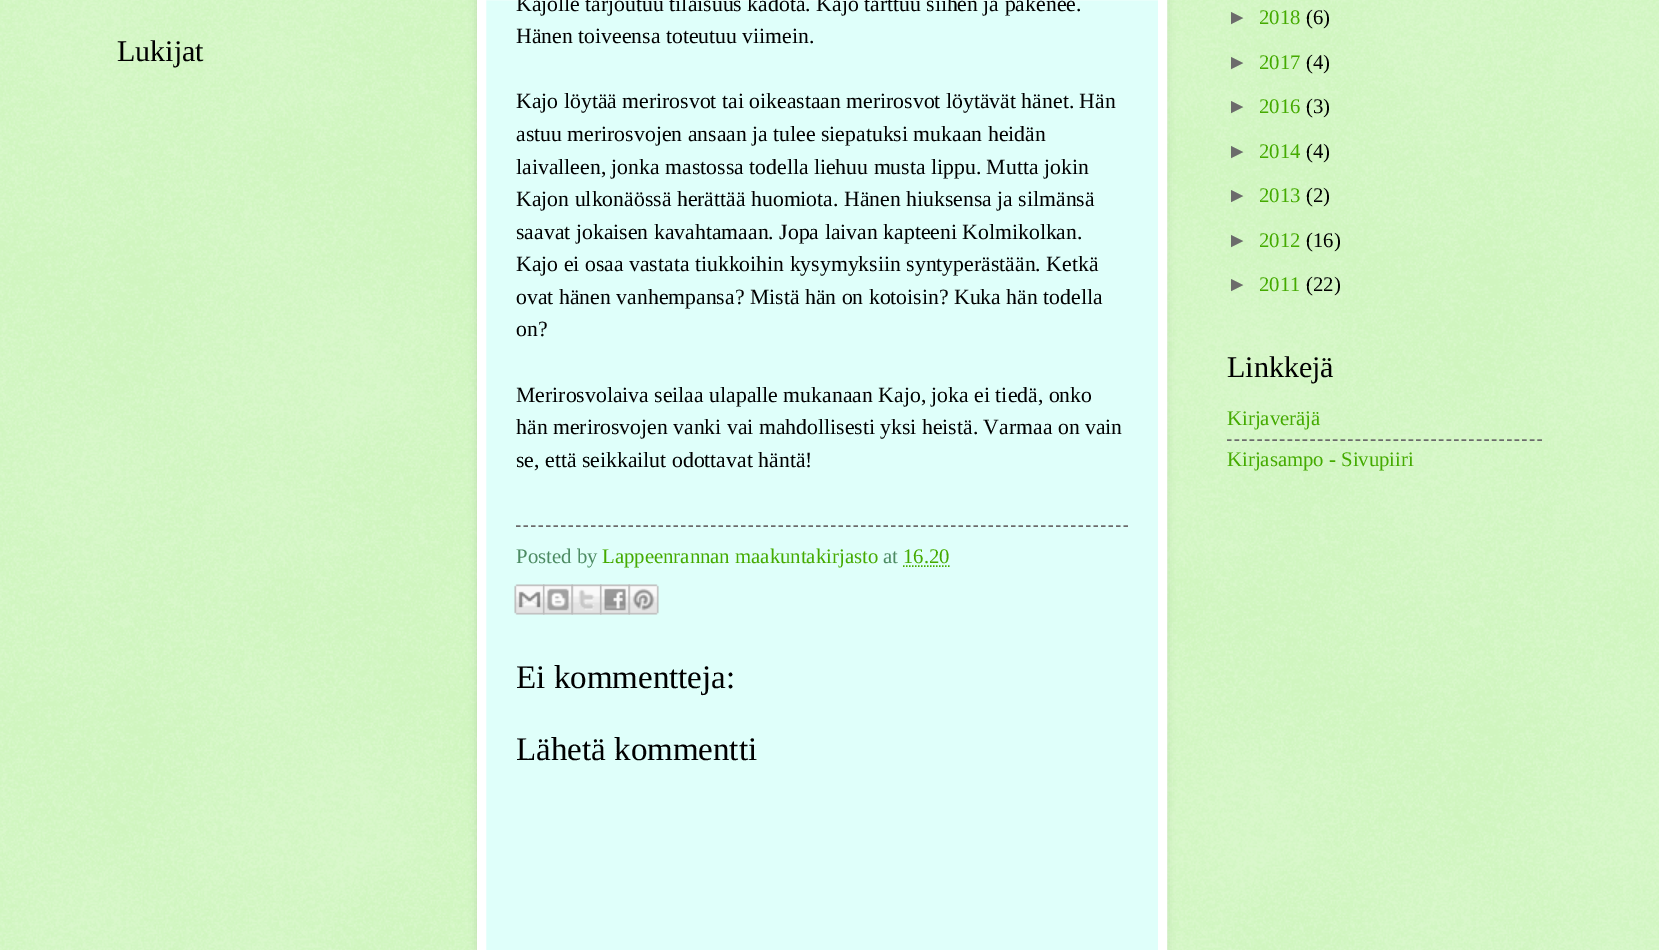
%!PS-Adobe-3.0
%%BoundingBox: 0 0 1659 950
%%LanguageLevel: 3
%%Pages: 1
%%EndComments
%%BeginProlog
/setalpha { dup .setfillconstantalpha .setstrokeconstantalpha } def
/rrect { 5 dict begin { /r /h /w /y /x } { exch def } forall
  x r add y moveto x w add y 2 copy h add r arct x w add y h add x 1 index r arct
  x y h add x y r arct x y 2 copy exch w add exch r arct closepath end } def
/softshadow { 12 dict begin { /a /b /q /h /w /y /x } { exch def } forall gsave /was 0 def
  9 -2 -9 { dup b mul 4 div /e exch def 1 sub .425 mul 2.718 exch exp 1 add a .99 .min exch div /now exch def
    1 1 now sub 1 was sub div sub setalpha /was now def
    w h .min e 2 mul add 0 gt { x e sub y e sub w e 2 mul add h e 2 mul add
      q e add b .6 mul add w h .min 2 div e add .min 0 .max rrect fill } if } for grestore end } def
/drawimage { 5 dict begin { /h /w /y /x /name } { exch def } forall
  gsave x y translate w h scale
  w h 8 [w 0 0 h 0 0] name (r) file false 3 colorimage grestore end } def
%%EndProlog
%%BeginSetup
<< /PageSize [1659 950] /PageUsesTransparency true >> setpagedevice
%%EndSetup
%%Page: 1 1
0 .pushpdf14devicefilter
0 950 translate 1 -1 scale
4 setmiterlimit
1 setgray
0 0 1659 950 rectfill
(images/1.raw) 0 0 1659 950 drawimage
0 setgray
477 -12 690 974 0 4 0.1 softshadow
0.875 1 0.98 setrgbcolor
newpath 481.5 -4.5 moveto 1162.5 -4.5 lineto 1162.5 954.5 lineto 481.5 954.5 lineto closepath gsave fill grestore
1 setgray
9 setlinewidth
stroke
0.42 setgray
1.5 setlinewidth
[4.5 3] 0 setdash
newpath 516 526 moveto 1128 526 lineto stroke
0.267 0.667 0 setrgbcolor
[1.5 1.5] 0 setdash
newpath 903 566 moveto 949.5 566 lineto stroke
(images/2.raw) 514 584 31 31 drawimage
(images/3.raw) 543 584 30 31 drawimage
(images/4.raw) 571 584 31 31 drawimage
(images/5.raw) 600 584 30 31 drawimage
(images/6.raw) 628 584 31 31 drawimage
0.42 setgray
[4.5 3.07] 0 setdash
newpath 1227 440 moveto 1542 440 lineto stroke
/LiberationSerif-Regular [30 0 0 -30 0 0] selectfont
0 setgray
117 61 moveto (Lukijat) show
/LiberationSerif-Regular [21.75 0 0 -21.75 0 0] selectfont
516 11 moveto (Kajolle tarjoutuu tilaisuus kadota. Kajo tarttuu siihen ja pakenee.) show
516 43 moveto (Hänen toiveensa toteutuu viimein.) show
516 108 moveto (Kajo löytää merirosvot tai oikeastaan merirosvot löytävät hänet. Hän) show
516 141 moveto (astuu merirosvojen ansaan ja tulee siepatuksi mukaan heidän) show
516 174 moveto (laivalleen, jonka mastossa todella liehuu musta lippu. Mutta jokin) show
516 206 moveto (Kajon ulkonäössä herättää huomiota. Hänen hiuksensa ja silmänsä) show
516 239 moveto (saavat jokaisen kavahtamaan. Jopa laivan kapteeni Kolmikolkan.) show
516 271 moveto (Kajo ei osaa vastata tiukkoihin kysymyksiin syntyperästään. Ketkä) show
516 304 moveto (ovat hänen vanhempansa? Mistä hän on kotoisin? Kuka hän todella) show
516 336 moveto (on?) show
516 402 moveto (Merirosvolaiva seilaa ulapalle mukanaan Kajo, joka ei tiedä, onko) show
516 434 moveto (hän merirosvojen vanki vai mahdollisesti yksi heistä. Varmaa on vain) show
516 467 moveto (se, että seikkailut odottavat häntä!) show
/LiberationSerif-Regular [20.75 0 0 -20.75 0 0] selectfont
0.298 0.541 0.384 setrgbcolor
516 563 moveto (Posted by) show
0.267 0.667 0 setrgbcolor
602 563 moveto (Lappeenrannan maakuntakirjasto) show
0.298 0.541 0.384 setrgbcolor
883 563 moveto (at) show
0.267 0.667 0 setrgbcolor
903 563 moveto (16.20) show
/LiberationSerif-Regular [33 0 0 -33 0 0] selectfont
0 setgray
516 688 moveto (Ei kommentteja:) show
516 760 moveto (Lähetä kommentti) show
/LiberationSans-Regular [20.75 0 0 -20.75 0 0] selectfont
0.42 setgray
1227 24 moveto (►) show
/LiberationSerif-Regular [20.75 0 0 -20.75 0 0] selectfont
0.267 0.667 0 setrgbcolor
1259 24 moveto (2018) show
0 setgray
1306 24 moveto (\(6\)) show
/LiberationSans-Regular [20.75 0 0 -20.75 0 0] selectfont
0.42 setgray
1227 69 moveto (►) show
/LiberationSerif-Regular [20.75 0 0 -20.75 0 0] selectfont
0.267 0.667 0 setrgbcolor
1259 69 moveto (2017) show
0 setgray
1306 69 moveto (\(4\)) show
/LiberationSans-Regular [20.75 0 0 -20.75 0 0] selectfont
0.42 setgray
1227 113 moveto (►) show
/LiberationSerif-Regular [20.75 0 0 -20.75 0 0] selectfont
0.267 0.667 0 setrgbcolor
1259 113 moveto (2016) show
0 setgray
1306 113 moveto (\(3\)) show
/LiberationSans-Regular [20.75 0 0 -20.75 0 0] selectfont
0.42 setgray
1227 158 moveto (►) show
/LiberationSerif-Regular [20.75 0 0 -20.75 0 0] selectfont
0.267 0.667 0 setrgbcolor
1259 158 moveto (2014) show
0 setgray
1306 158 moveto (\(4\)) show
/LiberationSans-Regular [20.75 0 0 -20.75 0 0] selectfont
0.42 setgray
1227 202 moveto (►) show
/LiberationSerif-Regular [20.75 0 0 -20.75 0 0] selectfont
0.267 0.667 0 setrgbcolor
1259 202 moveto (2013) show
0 setgray
1306 202 moveto (\(2\)) show
/LiberationSans-Regular [20.75 0 0 -20.75 0 0] selectfont
0.42 setgray
1227 247 moveto (►) show
/LiberationSerif-Regular [20.75 0 0 -20.75 0 0] selectfont
0.267 0.667 0 setrgbcolor
1259 247 moveto (2012) show
0 setgray
1306 247 moveto (\(16\)) show
/LiberationSans-Regular [20.75 0 0 -20.75 0 0] selectfont
0.42 setgray
1227 291 moveto (►) show
/LiberationSerif-Regular [20.75 0 0 -20.75 0 0] selectfont
0.267 0.667 0 setrgbcolor
1259 291 moveto (2011) show
0 setgray
1306 291 moveto (\(22\)) show
/LiberationSerif-Regular [30 0 0 -30 0 0] selectfont
1227 377 moveto (Linkkejä) show
/LiberationSerif-Regular [20.75 0 0 -20.75 0 0] selectfont
0.267 0.667 0 setrgbcolor
1227 425 moveto (Kirjaveräjä) show
1227 466 moveto (Kirjasampo - Sivupiiri) show
.poppdf14devicefilter showpage
%%EOF
